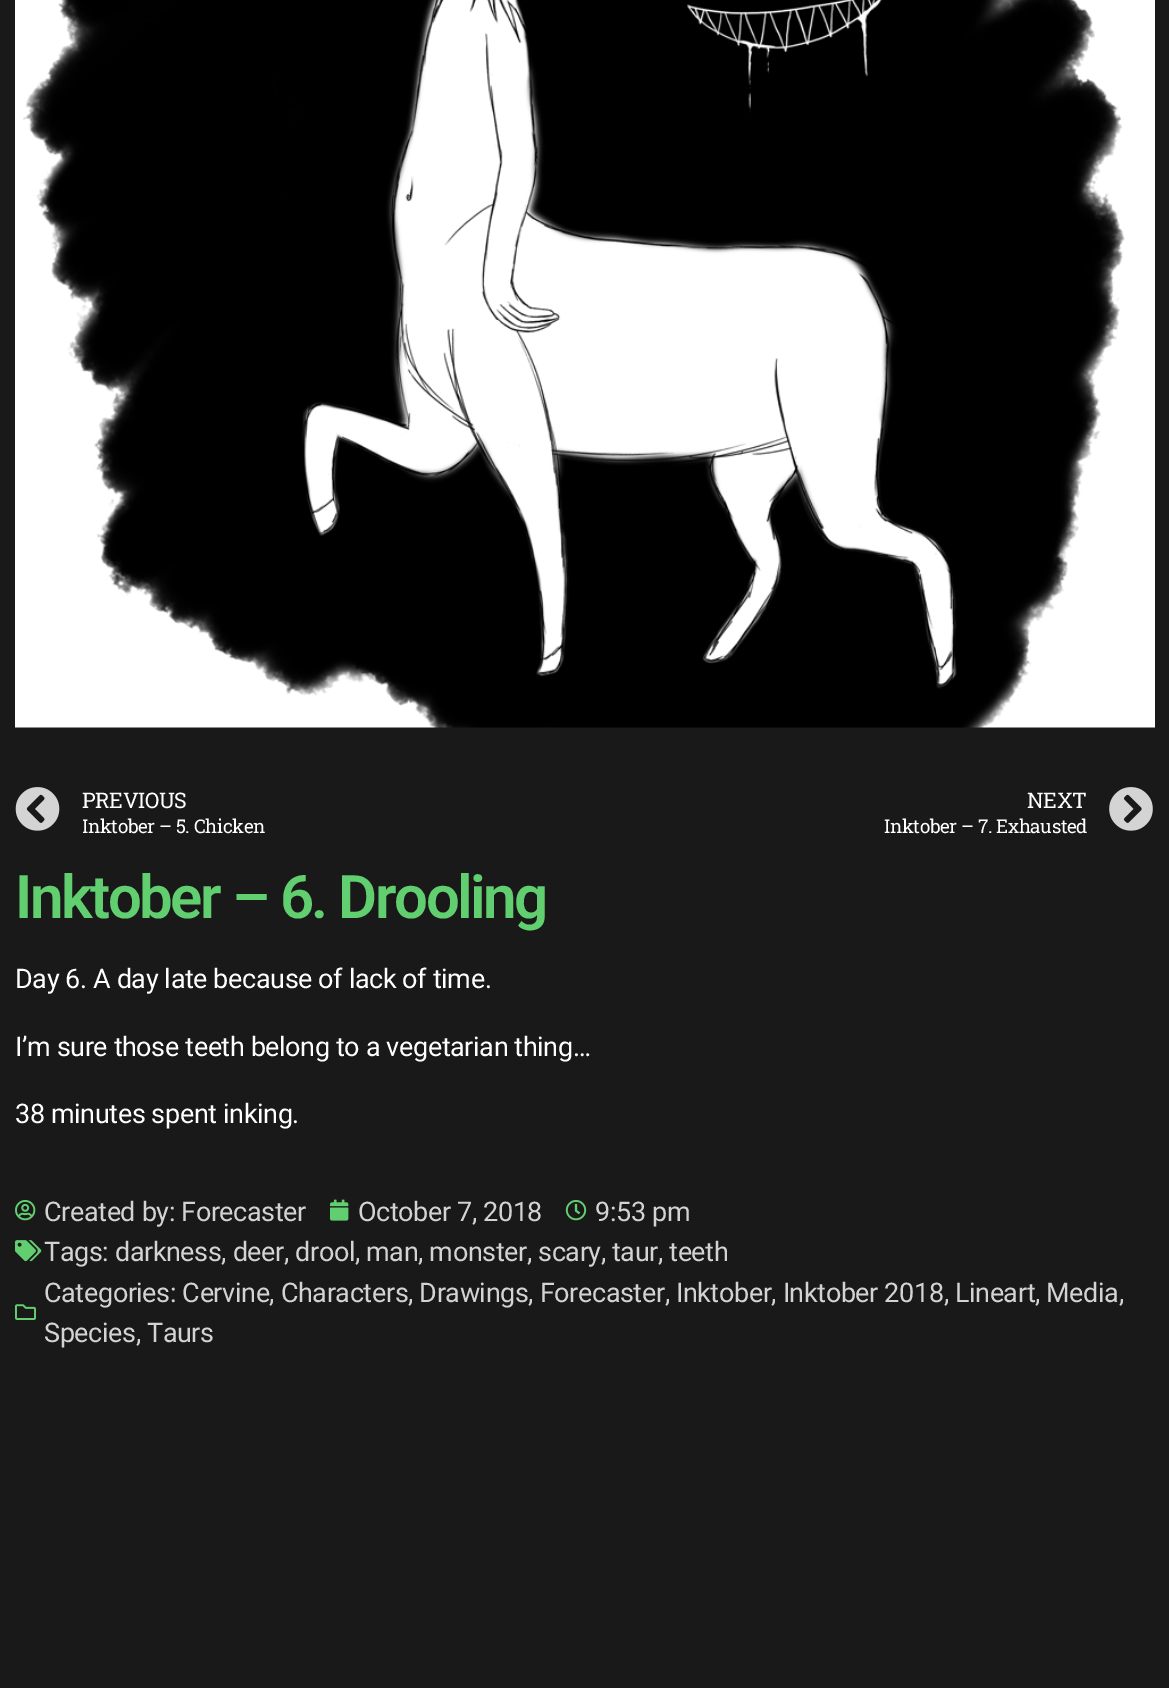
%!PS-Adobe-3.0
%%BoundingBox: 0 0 1169 1688
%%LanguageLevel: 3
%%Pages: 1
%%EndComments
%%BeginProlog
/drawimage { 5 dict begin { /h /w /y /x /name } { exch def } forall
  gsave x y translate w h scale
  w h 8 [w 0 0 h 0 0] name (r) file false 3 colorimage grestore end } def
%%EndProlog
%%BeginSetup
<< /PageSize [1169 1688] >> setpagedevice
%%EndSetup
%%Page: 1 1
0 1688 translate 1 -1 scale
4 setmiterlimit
0.098 setgray
0 0 1169 1688 rectfill
(images/1.raw) 15 0 1140 728 drawimage
(images/2.raw) 15 787 45 44 drawimage
(images/3.raw) 1109 787 44 44 drawimage
(images/4.raw) 15 1200 21 21 drawimage
(images/5.raw) 330 1199 19 22 drawimage
(images/6.raw) 565 1200 22 21 drawimage
(images/7.raw) 15 1240 27 22 drawimage
(images/8.raw) 15 1304 21 16 drawimage
/RobotoSlab-Regular [21.5 0 0 -21.5 0 0] selectfont
1 setgray
82 808 moveto -0.4 0 (PREVIOUS) ashow
gsave
83 813 183 24 rectclip
/RobotoSlab-Regular [18.9 0 0 -18.9 0 0] selectfont
82 833 moveto -0.4 0 (Inktober – 5. Chicken) ashow
grestore
1027 808 moveto -0.4 0 (NEXT) ashow
/RobotoSlab-Regular [18.9 0 0 -18.9 0 0] selectfont
884 833 moveto -0.4 0 (Inktober – 7. Exhausted) ashow
/Roboto-SemiBold [60 0 0 -60 0 0] selectfont
0.38 0.808 0.439 setrgbcolor
15 918 moveto -2.5 0 (Inktober – 6. Drooling) ashow
/Roboto-Regular [27 0 0 -27 0 0] selectfont
1 setgray
15 988 moveto -0.4 0 (Day 6. A day late because of lack of time.) ashow
15 1056 moveto -0.4 0 (I’m sure those teeth belong to a vegetarian thing…) ashow
15 1123 moveto -0.4 0 (38 minutes spent inking.) ashow
0.827 setgray
44 1221 moveto -0.4 0 (Created by: Forecaster) ashow
358 1221 moveto -0.4 0 (October 7, 2018) ashow
595 1221 moveto -0.4 0 (9:53 pm) ashow
44 1261 moveto -0.4 0 (Tags: darkness, deer, drool, man, monster, scary, taur, teeth) ashow
44 1302 moveto -0.4 0 (Categories: Cervine, Characters, Drawings, Forecaster, Inktober, Inktober 2018, Lineart, Media,) ashow
44 1342 moveto -0.4 0 (Species, Taurs) ashow
showpage
%%EOF
